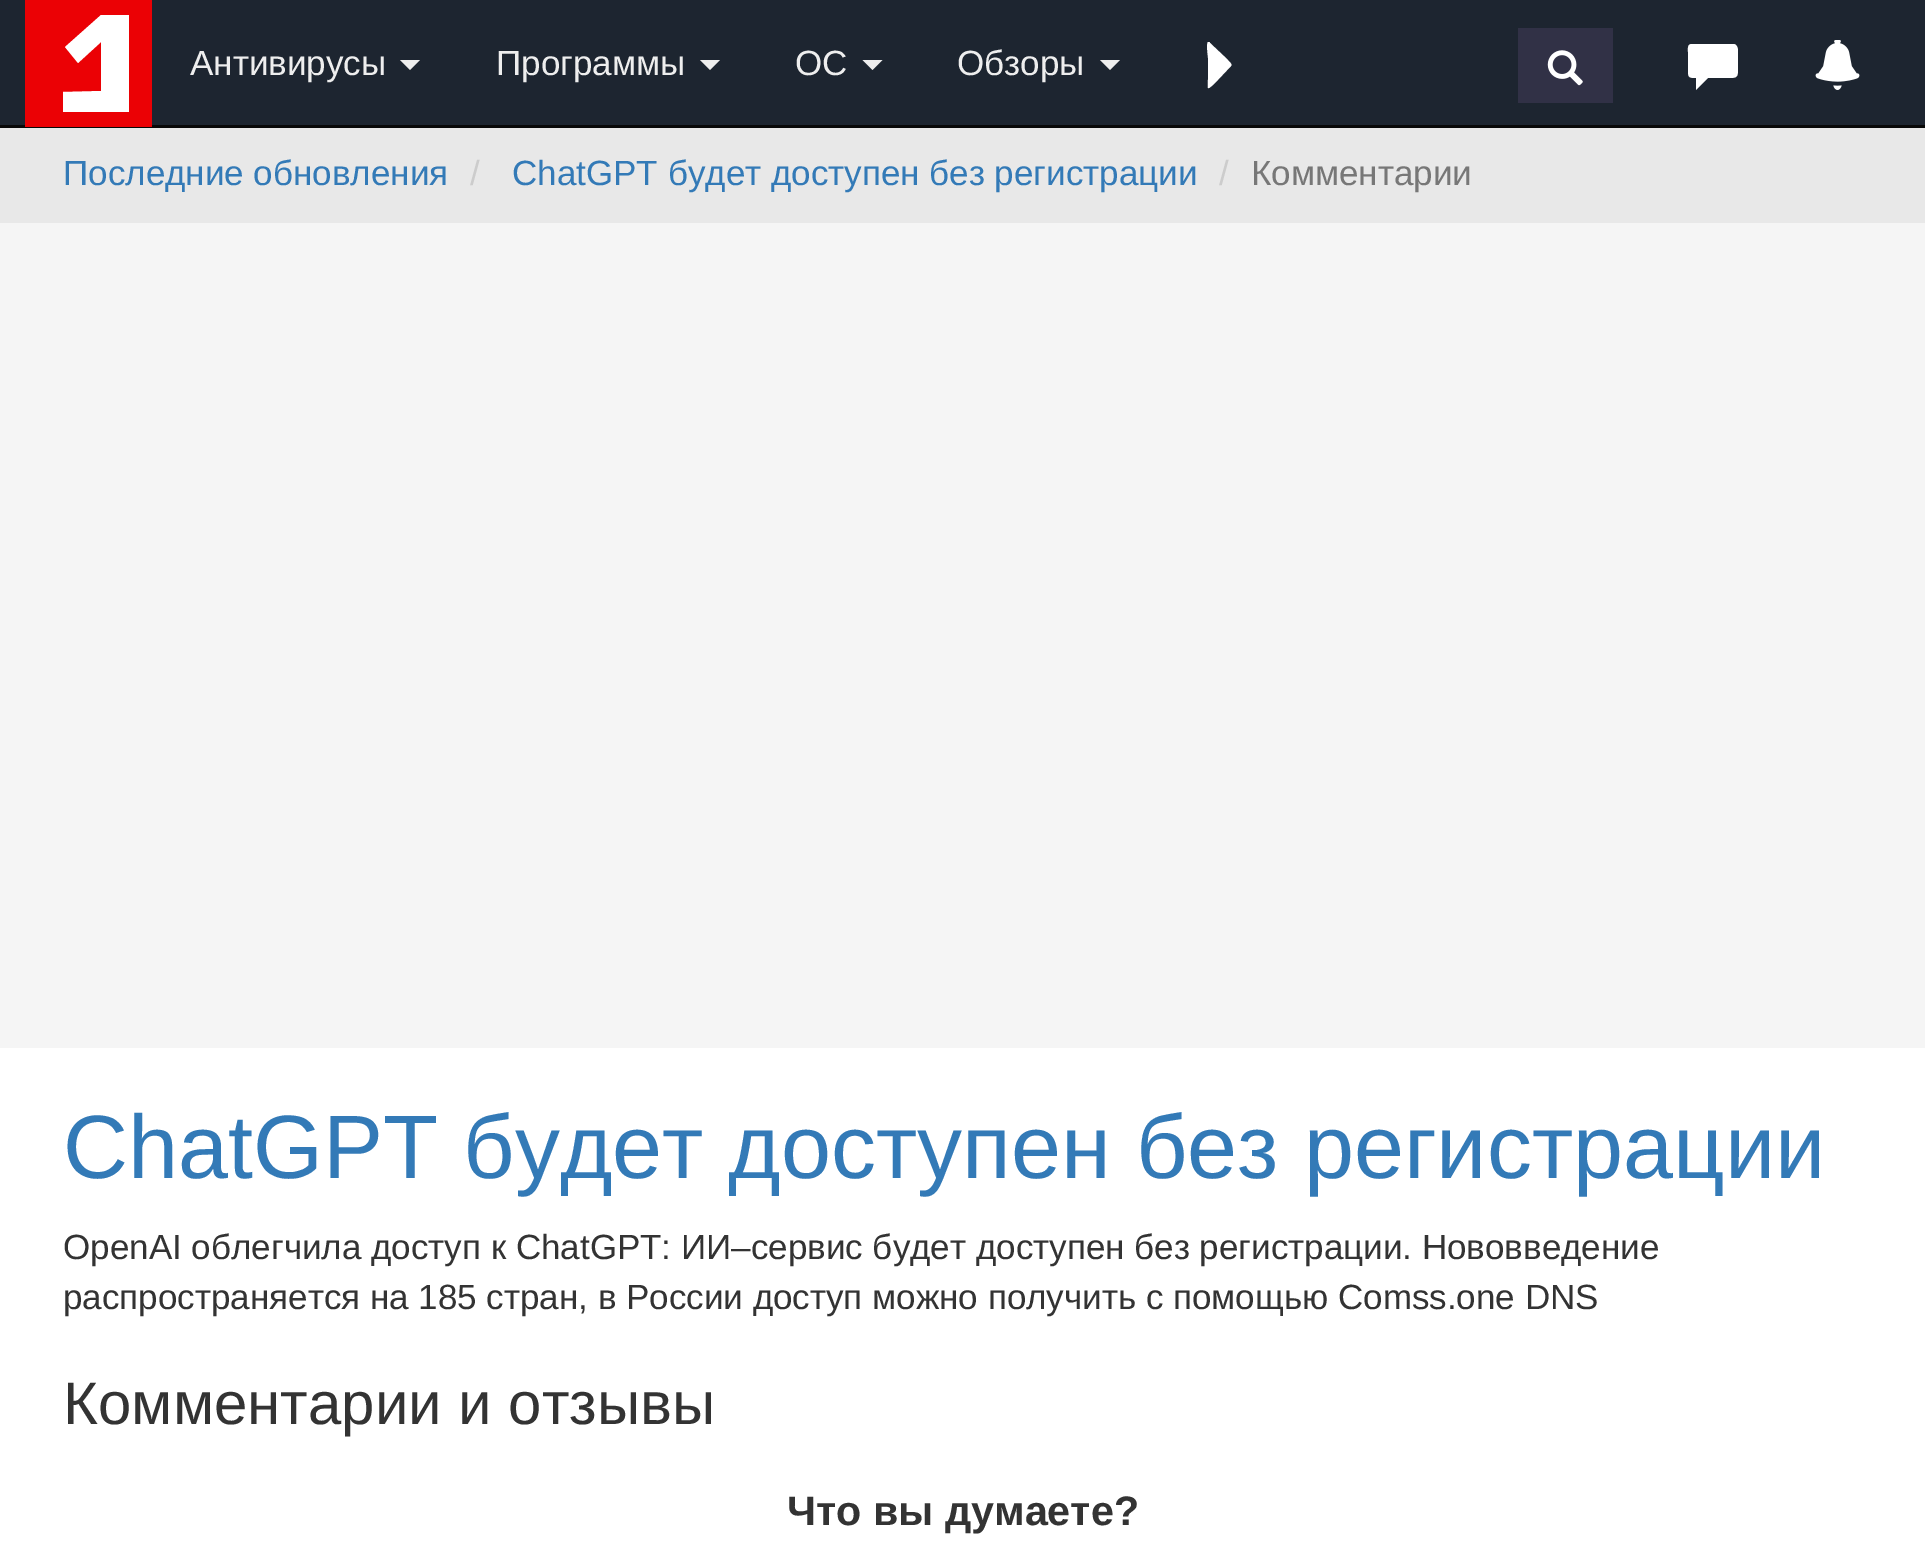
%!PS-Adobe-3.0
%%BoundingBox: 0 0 1925 1555
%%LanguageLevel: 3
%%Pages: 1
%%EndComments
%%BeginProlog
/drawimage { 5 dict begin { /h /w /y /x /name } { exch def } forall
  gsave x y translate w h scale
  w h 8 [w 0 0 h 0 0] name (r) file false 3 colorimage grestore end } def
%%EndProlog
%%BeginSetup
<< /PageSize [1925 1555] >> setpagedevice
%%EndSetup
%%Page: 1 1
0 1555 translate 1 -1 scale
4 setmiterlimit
1 setgray
0 0 1925 1555 rectfill
0.114 0.145 0.188 setrgbcolor
0 0 1925 125 rectfill
0.031 setgray
0 125 1925 3 rectfill
0.922 0.004 0.02 setrgbcolor
25 0 127 127 rectfill
1 setgray
newpath 63 112 moveto 129 112 lineto 129 15 lineto 101 15 lineto 65 47 lineto 78 63 lineto 101 42 lineto 101 91 lineto 63 92 lineto closepath fill
0.933 setgray
newpath 400 60 moveto 420 60 lineto 410 70 lineto closepath fill
newpath 700 60 moveto 720 60 lineto 710 70 lineto closepath fill
newpath 862.5 60 moveto 882.5 60 lineto 872.5 70 lineto closepath fill
newpath 1100 60 moveto 1120 60 lineto 1110 70 lineto closepath fill
1 setgray
newpath 1231 66 moveto 1214 84 lineto 1206 91 1208 89 1208 79 curveto 1208 58 lineto 1208 56 1206 44 1208 42 curveto 1209 42 1210 42 1210 43 curveto 1228 60 lineto 1228 61 1233 64 1231 66 curveto closepath fill
0.192 0.192 0.275 setrgbcolor
1518 28 95 75 rectfill
(images/1.raw) 1547 50 36 36 drawimage
1 setgray
newpath 1692 44 moveto 1734 44 lineto 1738 45 1738 50 1738 52 curveto 1738 69 lineto 1738 77 1737 78 1729 78 curveto 1708 78 lineto 1696 90 lineto 1696 78 lineto 1688 78 1688 77 1688 69 curveto 1688 52 lineto 1688 49 1687 44 1692 44 curveto closepath fill
(images/2.raw) 1815 40 45 50 drawimage
0.91 setgray
0 128 1925 95 rectfill
0.961 setgray
0 223 1925 825 rectfill
/LiberationSans-Regular [35 0 0 -35 0 0] selectfont
0.933 setgray
190 75 moveto (Антивирусы) show
496 75 moveto (Программы) show
795 75 moveto (ОС) show
957 75 moveto (Обзоры) show
0.2 0.478 0.718 setrgbcolor
63 185 moveto (Последние обновления) show
0.8 setgray
470 185 moveto (/) show
0.2 0.478 0.718 setrgbcolor
512 185 moveto (ChatGPT будет доступен без регистрации) show
0.8 setgray
1219 185 moveto (/) show
0.467 setgray
1251 185 moveto (Комментарии) show
/LiberationSans-Regular [90 0 0 -90 0 0] selectfont
0.2 0.478 0.718 setrgbcolor
63 1178 moveto (ChatGPT будет доступен без регистрации) show
/LiberationSans-Regular [35 0 0 -35 0 0] selectfont
0.2 setgray
63 1259 moveto (OpenAI облегчила доступ к ChatGPT: ИИ–сервис будет доступен без регистрации. Нововведение) show
63 1309 moveto (распространяется на 185 стран, в России доступ можно получить с помощью Comss.one DNS) show
/LiberationSans-Regular [60 0 0 -60 0 0] selectfont
63 1424 moveto (Комментарии и отзывы) show
/LiberationSans-Bold [41.25 0 0 -41.25 0 0] selectfont
787 1525 moveto (Что вы думаете?) show
showpage
%%EOF
